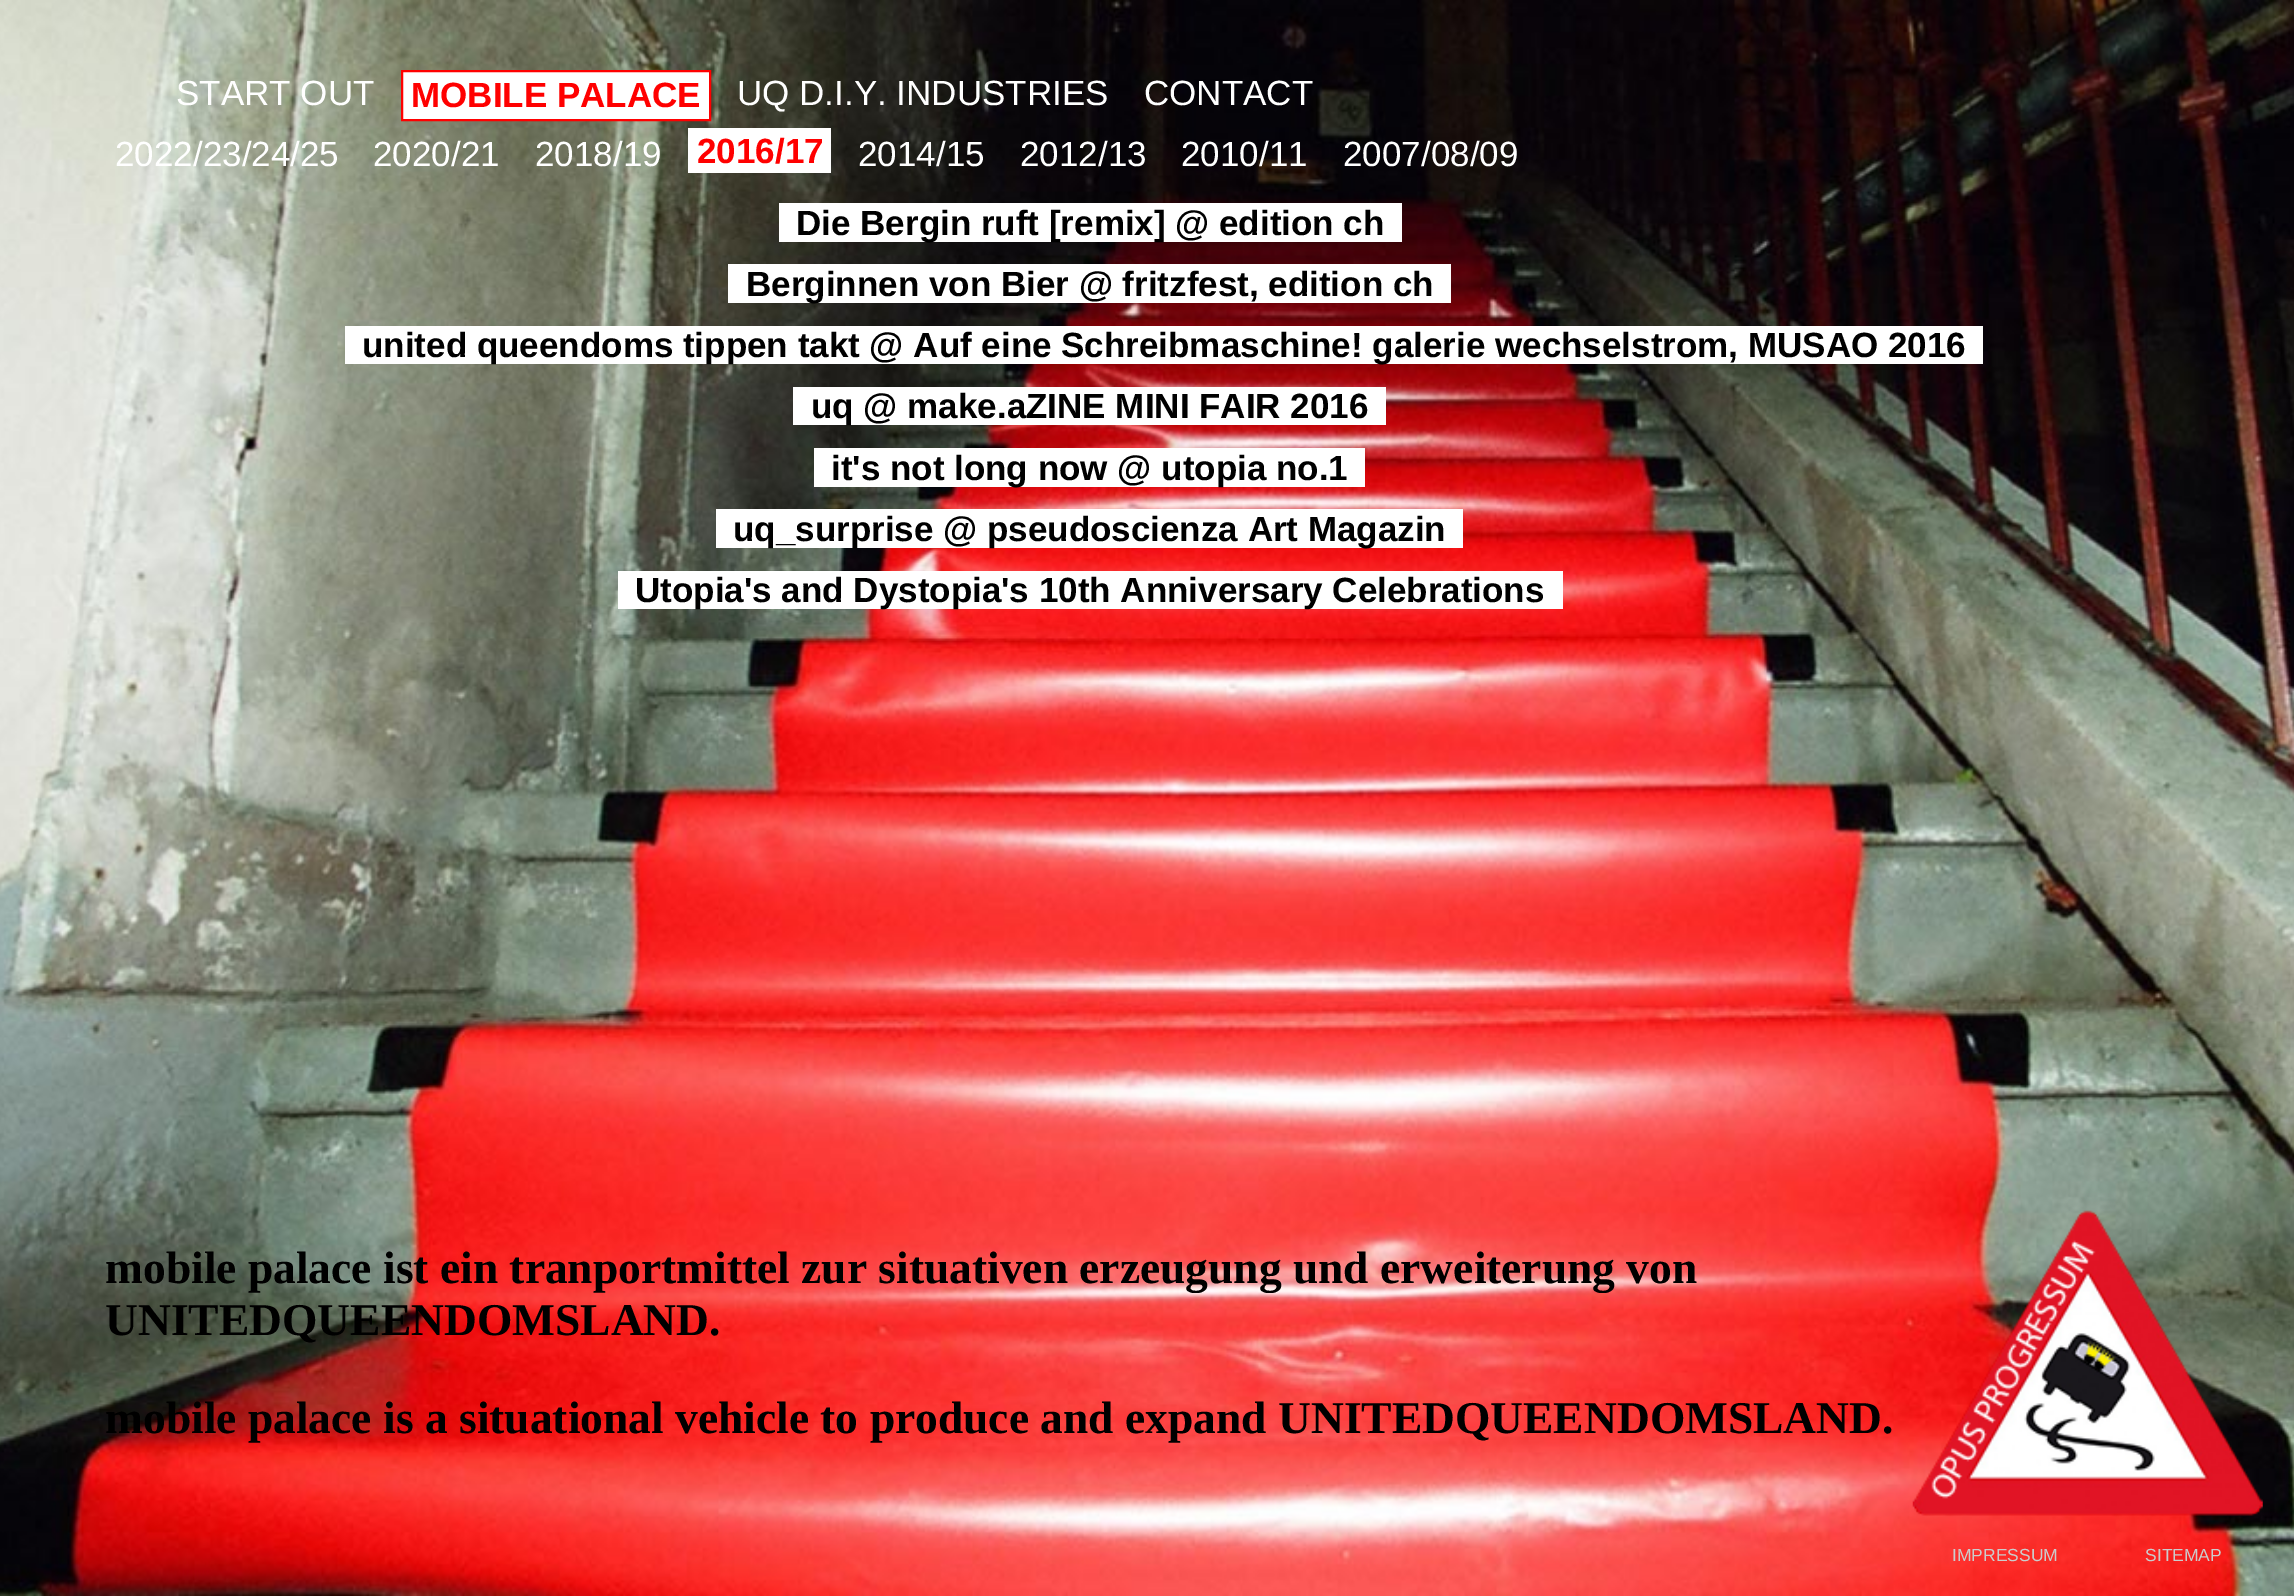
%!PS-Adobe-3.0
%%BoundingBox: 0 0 2294 1596
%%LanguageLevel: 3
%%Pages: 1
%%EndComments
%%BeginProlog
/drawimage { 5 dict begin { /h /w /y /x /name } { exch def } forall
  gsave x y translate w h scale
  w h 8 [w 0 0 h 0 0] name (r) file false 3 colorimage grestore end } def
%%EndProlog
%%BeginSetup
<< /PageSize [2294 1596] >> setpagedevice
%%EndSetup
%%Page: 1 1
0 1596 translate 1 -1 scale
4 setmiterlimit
1 setgray
0 0 2294 1596 rectfill
(images/1.raw) 0 0 2294 1596 drawimage
newpath 402 71 moveto 710 71 lineto 710 120 lineto 402 120 lineto closepath gsave fill grestore
1 0 0 setrgbcolor
2 setlinewidth
stroke
1 setgray
688 128 143 45 rectfill
779 203 623 39 rectfill
728 264 723 39 rectfill
345 326 1638 38 rectfill
793 387 593 38 rectfill
814 448 551 39 rectfill
716 509 747 39 rectfill
618 571 945 38 rectfill
(images/2.raw) 1912 1210 351 306 drawimage
/LiberationSans-Regular [35 0 0 -35 0 0] selectfont
176 105 moveto (START OUT) show
/LiberationSans-Bold [35 0 0 -35 0 0] selectfont
1 0 0 setrgbcolor
411 107 moveto (MOBILE PALACE) show
/LiberationSans-Regular [35 0 0 -35 0 0] selectfont
1 setgray
737 105 moveto (UQ D.I.Y. INDUSTRIES) show
1144 105 moveto (CONTACT) show
115 166 moveto (2022/23/24/25) show
373 166 moveto (2020/21) show
535 166 moveto (2018/19) show
/LiberationSans-Bold [35 0 0 -35 0 0] selectfont
1 0 0 setrgbcolor
697 163 moveto (2016/17) show
/LiberationSans-Regular [35 0 0 -35 0 0] selectfont
1 setgray
858 166 moveto (2014/15) show
1020 166 moveto (2012/13) show
1181 166 moveto (2010/11) show
1343 166 moveto (2007/08/09) show
/LiberationSerif-Bold [45.5 0 0 -45.5 0 0] selectfont
0 setgray
105 1283 moveto (mobile palace ist ein tranportmittel zur situativen erzeugung und erweiterung von) show
105 1335 moveto (UNITEDQUEENDOMSLAND.) show
105 1433 moveto (mobile palace is a situational vehicle to produce and expand UNITEDQUEENDOMSLAND.) show
/LiberationSans-Bold [35 0 0 -35 0 0] selectfont
796 235 moveto (Die Bergin ruft [remix] @ edition ch) show
746 296 moveto (Berginnen von Bier @ fritzfest, edition ch) show
362 357 moveto (united queendoms tippen takt @ Auf eine Schreibmaschine! galerie wechselstrom, MUSAO 2016) show
811 418 moveto (uq @ make.aZINE MINI FAIR 2016) show
831 480 moveto (it's not long now @ utopia no.1) show
733 541 moveto (uq_surprise @ pseudoscienza Art Magazin) show
635 602 moveto (Utopia's and Dystopia's 10th Anniversary Celebrations) show
/LiberationSans-Regular [17.5 0 0 -17.5 0 0] selectfont
0.8 setgray
1952 1561 moveto (IMPRESSUM) show
2145 1561 moveto (SITEMAP) show
showpage
%%EOF
